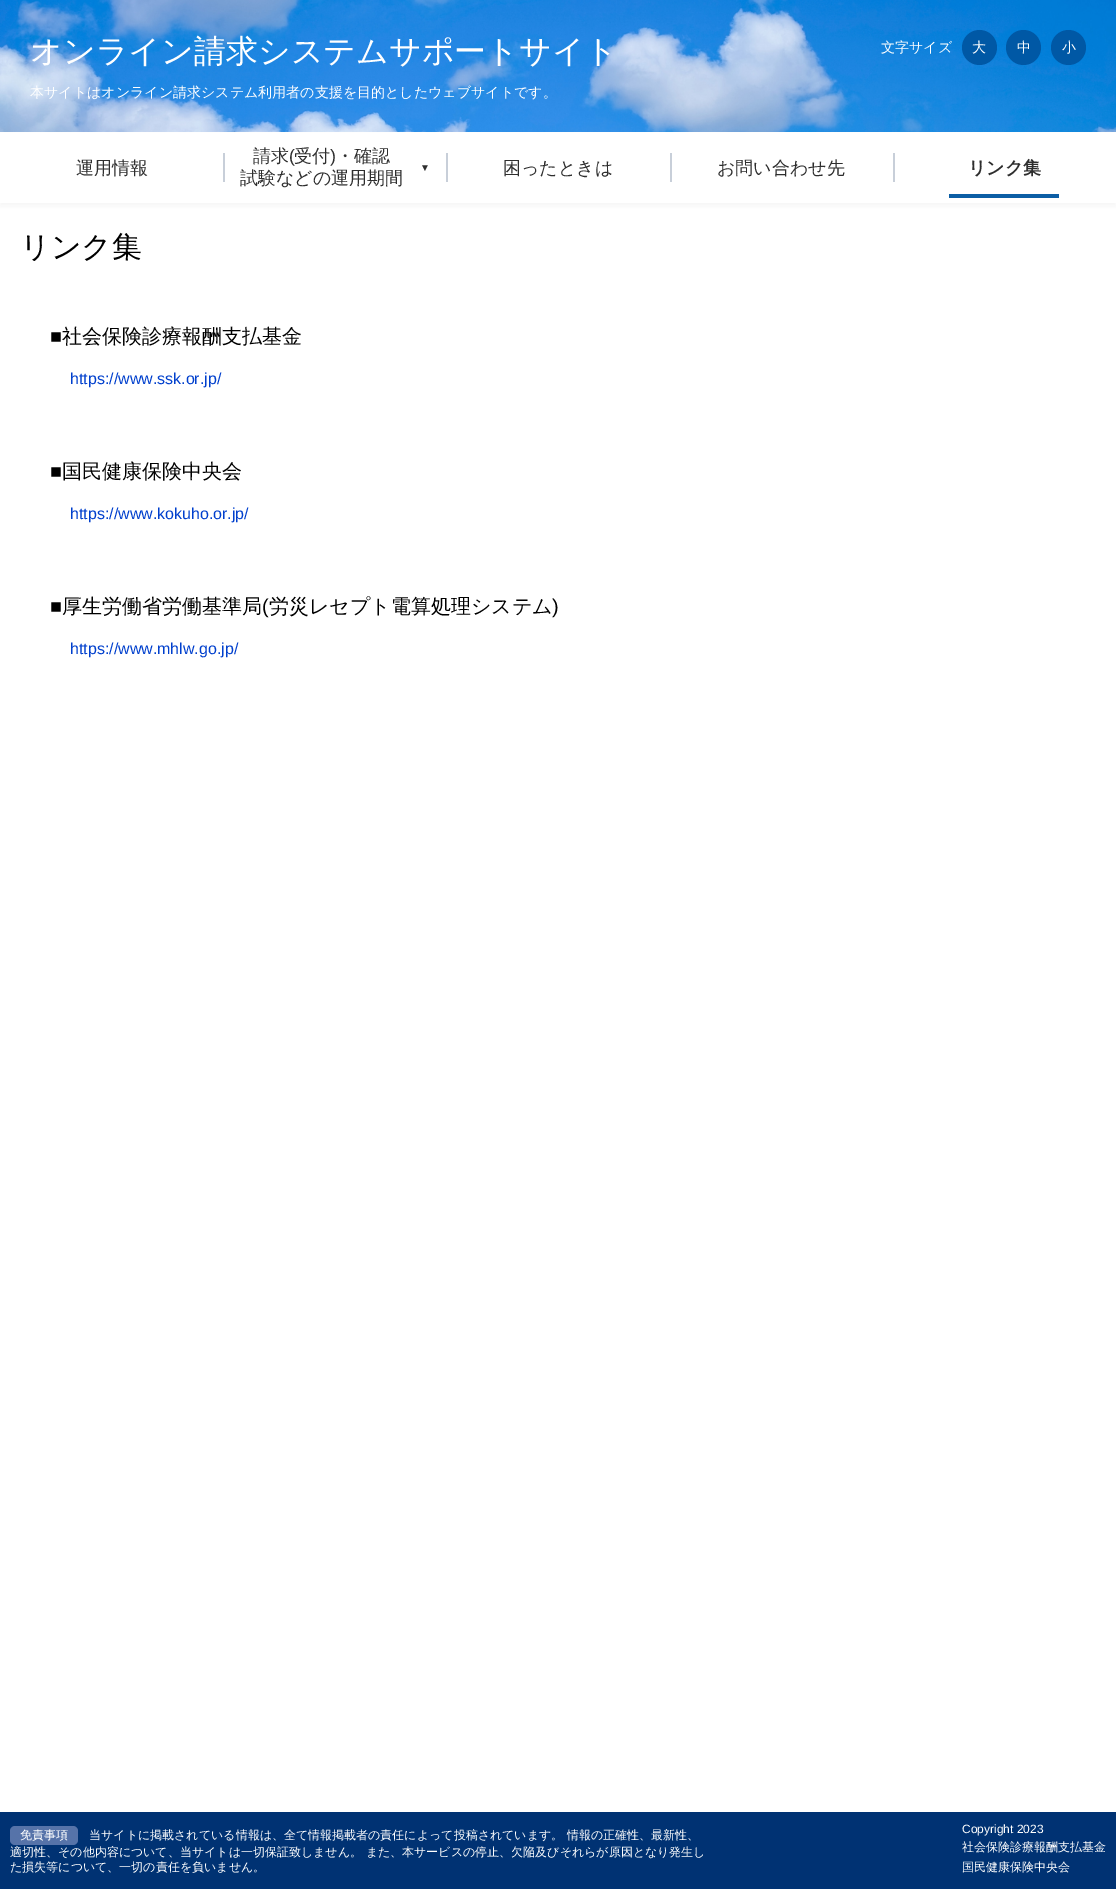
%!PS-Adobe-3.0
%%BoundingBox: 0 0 1116 1889
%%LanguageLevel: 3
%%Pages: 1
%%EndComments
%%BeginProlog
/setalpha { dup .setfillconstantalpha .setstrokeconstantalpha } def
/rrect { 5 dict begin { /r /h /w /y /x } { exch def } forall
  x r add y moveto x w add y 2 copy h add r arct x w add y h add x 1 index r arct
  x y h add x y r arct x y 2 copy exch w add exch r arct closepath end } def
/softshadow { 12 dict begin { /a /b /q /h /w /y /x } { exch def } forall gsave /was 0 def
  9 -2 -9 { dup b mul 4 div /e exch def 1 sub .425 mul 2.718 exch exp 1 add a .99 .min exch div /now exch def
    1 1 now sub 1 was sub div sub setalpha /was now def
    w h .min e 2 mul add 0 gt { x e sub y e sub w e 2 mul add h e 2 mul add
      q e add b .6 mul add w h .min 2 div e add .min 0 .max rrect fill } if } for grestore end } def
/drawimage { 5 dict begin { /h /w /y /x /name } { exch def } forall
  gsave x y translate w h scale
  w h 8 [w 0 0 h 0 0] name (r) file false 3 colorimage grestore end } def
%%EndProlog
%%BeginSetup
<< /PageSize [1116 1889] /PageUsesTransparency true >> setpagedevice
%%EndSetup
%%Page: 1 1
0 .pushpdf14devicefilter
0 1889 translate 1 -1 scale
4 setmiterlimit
1 setgray
0 0 1116 1889 rectfill
0.576 setgray
0 135 1116 71 0 3 0.1 softshadow
(images/1.raw) 0 0 1116 132 drawimage
0 0.345 0.647 setrgbcolor
newpath 979.5 47.5 17.5 0 360 arc closepath fill
newpath 1023.5 47.5 17.5 0 360 arc closepath fill
newpath 1068.5 47.5 17.5 0 360 arc closepath fill
1 setgray
0 133 1116 70 rectfill
0.784 0.812 0.851 setrgbcolor
223 153 2 29 rectfill
446 153 2 29 rectfill
670 153 2 29 rectfill
893 153 2 29 rectfill
0.047 0.369 0.647 setrgbcolor
949 194 110 4 rectfill
0 0.196 0.451 setrgbcolor
0 1812 1116 77 rectfill
0.337 0.451 0.663 setrgbcolor
10 1826 68 19 5 rrect fill
/WenQuanYiZenHei-Medium [32 0 0 -32 0 0] selectfont
1 setgray
30 62 moveto (オンライン請求システムサポートサイト) show
/WenQuanYiZenHei-Medium [14 0 0 -14 0 0] selectfont
30 97 moveto (本サイトはオンライン請求システム利用者の支援を目的としたウェブサイトです。) show
881 52 moveto (文字サイズ) show
972 52 moveto (大) show
1017 52 moveto (中) show
1062 52 moveto (小) show
/WenQuanYiZenHei-Medium [18 0 0 -18 0 0] selectfont
0.18 setgray
76 174 moveto (運用情報) show
253 162 moveto (請求) show
/LiberationSans-Regular [18 0 0 -18 0 0] selectfont
289 162 moveto (\() show
/WenQuanYiZenHei-Medium [18 0 0 -18 0 0] selectfont
294 162 moveto (受付) show
/LiberationSans-Regular [18 0 0 -18 0 0] selectfont
330 162 moveto (\)) show
/WenQuanYiZenHei-Medium [18 0 0 -18 0 0] selectfont
336 162 moveto (・確認) show
/LiberationSans-Bold [10 0 0 -10 0 0] selectfont
420 171 moveto (▼) show
/WenQuanYiZenHei-Medium [18 0 0 -18 0 0] selectfont
240 184 moveto (試験などの運用期間) show
503 174 moveto (困ったときは) show
717 174 moveto (お問い合わせ先) show
/WenQuanYiZenHei-Bold [18 0 0 -18 0 0] selectfont
968 174 moveto (リンク集) show
/WenQuanYiZenHei-Medium [30 0 0 -30 0 0] selectfont
0 setgray
20 257 moveto (リンク集) show
/LiberationSans-Regular [20 0 0 -20 0 0] selectfont
50 343 moveto (■) show
/WenQuanYiZenHei-Medium [20 0 0 -20 0 0] selectfont
62 343 moveto (社会保険診療報酬支払基金) show
/LiberationSans-Regular [16 0 0 -16 0 0] selectfont
0 0.247 0.804 setrgbcolor
70 384 moveto (https://www.ssk.or.jp/) show
/LiberationSans-Regular [20 0 0 -20 0 0] selectfont
0 setgray
50 478 moveto (■) show
/WenQuanYiZenHei-Medium [20 0 0 -20 0 0] selectfont
62 478 moveto (国民健康保険中央会) show
/LiberationSans-Regular [16 0 0 -16 0 0] selectfont
0 0.247 0.804 setrgbcolor
70 519 moveto (https://www.kokuho.or.jp/) show
/LiberationSans-Regular [20 0 0 -20 0 0] selectfont
0 setgray
50 613 moveto (■) show
/WenQuanYiZenHei-Medium [20 0 0 -20 0 0] selectfont
62 613 moveto (厚生労働省労働基準局) show
/LiberationSans-Regular [20 0 0 -20 0 0] selectfont
262 613 moveto (\() show
/WenQuanYiZenHei-Medium [20 0 0 -20 0 0] selectfont
269 613 moveto (労災レセプト電算処理システム) show
/LiberationSans-Regular [20 0 0 -20 0 0] selectfont
552 613 moveto (\)) show
/LiberationSans-Regular [16 0 0 -16 0 0] selectfont
0 0.247 0.804 setrgbcolor
70 654 moveto (https://www.mhlw.go.jp/) show
/WenQuanYiZenHei-Medium [12 0 0 -12 0 0] selectfont
1 setgray
20 1839 moveto (免責事項) show
89 1839 moveto (当サイトに掲載されている情報は、全て情報掲載者の責任によって投稿されています。 情報の正確性、最新性、) show
10 1856 moveto (適切性、その他内容について、当サイトは⼀切保証致しません。 また、本サービスの停⽌、⽋陥及びそれらが原因となり発⽣し) show
10 1871 moveto (た損失等について、⼀切の責任を負いません。) show
/LiberationSans-Regular [12 0 0 -12 0 0] selectfont
962 1833 moveto (Copyright 2023) show
/WenQuanYiZenHei-Medium [12 0 0 -12 0 0] selectfont
962 1851 moveto (社会保険診療報酬支払基金) show
962 1871 moveto (国民健康保険中央会) show
.poppdf14devicefilter showpage
%%EOF
